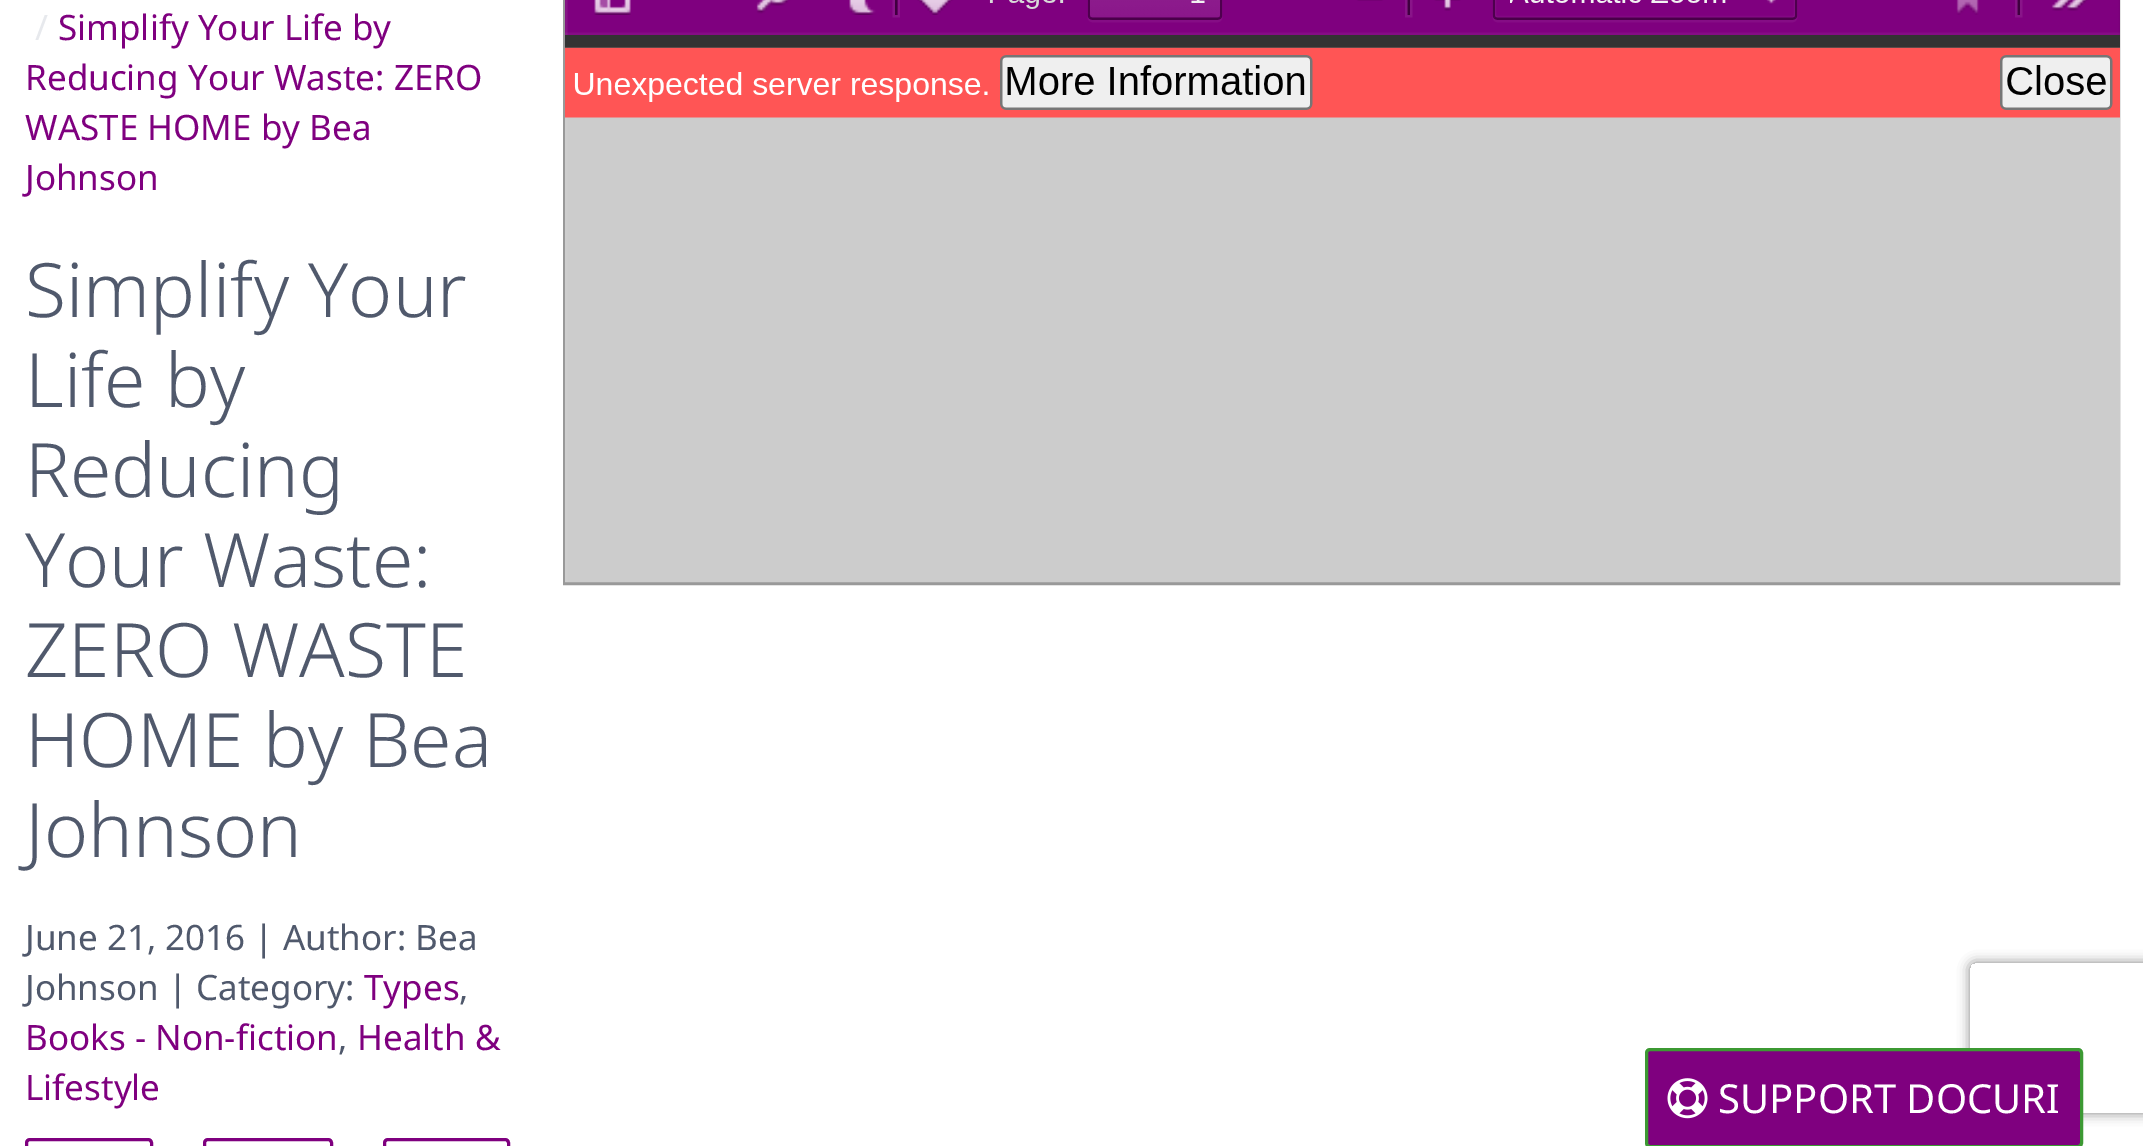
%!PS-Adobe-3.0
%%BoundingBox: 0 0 2143 1146
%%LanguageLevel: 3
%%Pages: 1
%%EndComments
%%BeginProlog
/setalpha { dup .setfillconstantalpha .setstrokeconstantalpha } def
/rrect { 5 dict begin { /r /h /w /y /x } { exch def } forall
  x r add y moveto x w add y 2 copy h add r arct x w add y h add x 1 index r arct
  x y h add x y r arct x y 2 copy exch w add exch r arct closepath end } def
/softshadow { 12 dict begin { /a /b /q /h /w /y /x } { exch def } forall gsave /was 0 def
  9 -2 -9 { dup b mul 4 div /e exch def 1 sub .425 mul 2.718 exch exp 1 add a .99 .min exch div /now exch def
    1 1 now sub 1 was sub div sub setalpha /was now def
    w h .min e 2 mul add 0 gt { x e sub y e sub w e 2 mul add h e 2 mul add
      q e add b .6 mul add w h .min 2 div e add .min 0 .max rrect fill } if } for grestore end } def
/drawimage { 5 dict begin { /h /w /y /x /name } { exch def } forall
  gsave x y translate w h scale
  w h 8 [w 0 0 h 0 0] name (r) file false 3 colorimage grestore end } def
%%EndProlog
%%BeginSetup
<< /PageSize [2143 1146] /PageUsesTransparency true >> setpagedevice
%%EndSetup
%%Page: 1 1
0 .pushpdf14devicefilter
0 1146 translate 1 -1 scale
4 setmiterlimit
1 setgray
0 0 2143 1146 rectfill
gsave
newpath 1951 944 moveto 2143 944 lineto 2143 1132 lineto 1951 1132 lineto closepath 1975 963 moveto 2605 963 lineto 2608 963 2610 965 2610 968 curveto 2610 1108 lineto 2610 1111 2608 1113 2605 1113 curveto 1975 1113 lineto 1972 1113 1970 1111 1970 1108 curveto 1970 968 lineto 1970 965 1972 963 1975 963 curveto closepath eoclip newpath
0.502 setgray
1970 963 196 150 5 6 1 softshadow
grestore
0.498 0 0.498 setrgbcolor
3 setlinewidth
26.5 1139.5 125 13 3.5 rrect stroke
204.5 1139.5 127 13 3.5 rrect stroke
384.5 1139.5 124 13 3.5 rrect stroke
0.6 setgray
564.5 -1.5 1554 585 rectstroke
(images/1.raw) 565 0 1555 583 drawimage
0.498 0 0.498 setrgbcolor
1646.5 1049.5 435 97 3.5 rrect gsave fill grestore
0.235 0.6 0.2 setrgbcolor
stroke
(images/2.raw) 1667 1078 41 41 drawimage
/NotoSans-Regular [35 0 0 -35 0 0] selectfont
0.906 0.914 0.929 setrgbcolor
35 40 moveto (/) show
0.498 0 0.498 setrgbcolor
58 40 moveto (Simplify Your Life by) show
25 90 moveto (Reducing Your Waste: ZERO) show
25 140 moveto (WASTE HOME by Bea) show
25 190 moveto (Johnson) show
/NotoSans-Light [75 0 0 -75 0 0] selectfont
0.314 0.349 0.424 setrgbcolor
25 317 moveto (Simplify Your) show
25 407 moveto (Life by) show
25 497 moveto (Reducing) show
25 587 moveto (Your Waste:) show
25 677 moveto (ZERO WASTE) show
25 767 moveto (HOME by Bea) show
25 857 moveto (Johnson) show
/NotoSans-Regular [35 0 0 -35 0 0] selectfont
25 950 moveto (June 21, 2016 | Author: Bea) show
25 1000 moveto (Johnson | Category:) show
0.498 0 0.498 setrgbcolor
364 1000 moveto (Types) show
0.314 0.349 0.424 setrgbcolor
459 1000 moveto (,) show
0.498 0 0.498 setrgbcolor
25 1050 moveto (Books - Non-fiction) show
0.314 0.349 0.424 setrgbcolor
338 1050 moveto (,) show
0.498 0 0.498 setrgbcolor
357 1050 moveto (Health &) show
25 1100 moveto (Lifestyle) show
/NotoSans-Regular [40 0 0 -40 0 0] selectfont
1 setgray
1718 1113 moveto (SUPPORT DOCURI) show
.poppdf14devicefilter showpage
%%EOF
